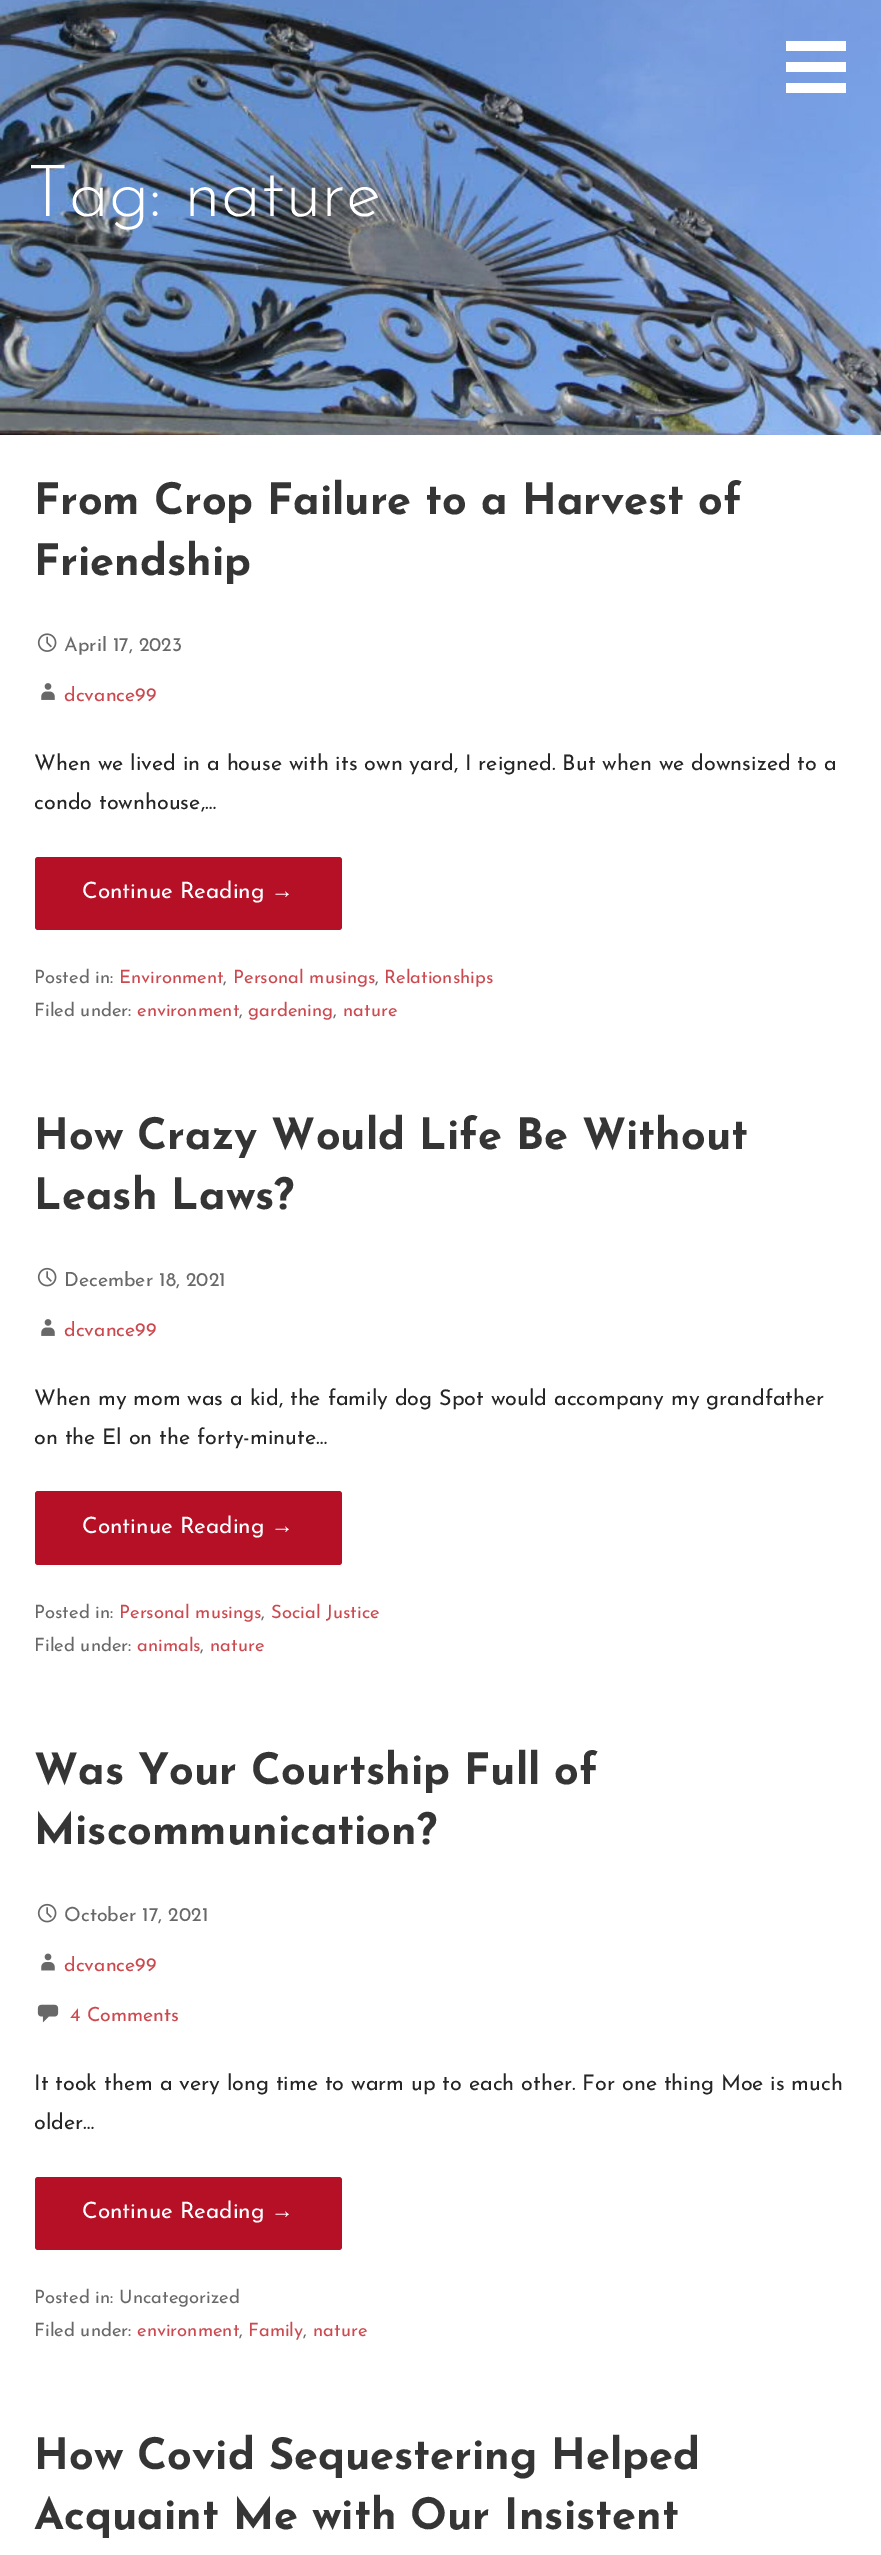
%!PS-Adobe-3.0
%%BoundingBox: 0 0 881 2555
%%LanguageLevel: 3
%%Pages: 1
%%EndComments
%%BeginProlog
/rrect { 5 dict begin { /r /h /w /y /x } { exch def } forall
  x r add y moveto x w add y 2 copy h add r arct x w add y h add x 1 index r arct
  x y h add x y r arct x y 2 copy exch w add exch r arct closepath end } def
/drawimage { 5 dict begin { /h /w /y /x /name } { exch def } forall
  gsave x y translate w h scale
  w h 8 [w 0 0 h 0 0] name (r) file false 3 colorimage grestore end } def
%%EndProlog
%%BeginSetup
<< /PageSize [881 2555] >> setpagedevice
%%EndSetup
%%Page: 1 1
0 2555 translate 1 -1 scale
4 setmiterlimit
1 setgray
0 0 881 2555 rectfill
(images/1.raw) 0 0 881 435 drawimage
786 41 60 10 rectfill
786 62 60 10 rectfill
786 83 60 10 rectfill
(images/2.raw) 37 633 20 19 drawimage
(images/3.raw) 41 683 14 17 drawimage
0.71 0.063 0.149 setrgbcolor
35 857 307 73 3 rrect fill
(images/4.raw) 37 1267 20 20 drawimage
(images/3.raw) 41 1319 14 17 drawimage
35 1491 307 74 3 rrect fill
(images/4.raw) 37 1903 20 20 drawimage
(images/5.raw) 41 1953 14 18 drawimage
(images/6.raw) 37 2004 22 19 drawimage
35 2177 307 73 3 rrect fill
/JosefinSans-Light [72 0 0 -72 0 0] selectfont
1 setgray
27 216 moveto (Tag: nature) show
/JosefinSans-Bold [43.25 0 0 -43.25 0 0] selectfont
0.208 setgray
34 514 moveto (From Crop Failure to a Harvest of) show
34 575 moveto (Friendship) show
/JosefinSans-Regular [19.5 0 0 -19.5 0 0] selectfont
0.408 setgray
64 651 moveto (April 17, 2023) show
0.8 0.286 0.31 setrgbcolor
64 701 moveto (dcvance99) show
/JosefinSans-Regular [21.6 0 0 -21.6 0 0] selectfont
0.145 setgray
34 770 moveto (When we lived in a house with its own yard, I reigned. But when we downsized to a) show
34 809 moveto (condo townhouse,…) show
/JosefinSans-Regular [22.5 0 0 -22.5 0 0] selectfont
1 setgray
82 898 moveto (Continue Reading) show
/LiberationSans-Regular [22.5 0 0 -22.5 0 0] selectfont
271 898 moveto (→) show
/JosefinSans-Regular [18.4 0 0 -18.4 0 0] selectfont
0.408 setgray
34 983 moveto (Posted in:) show
0.8 0.286 0.31 setrgbcolor
119 983 moveto (Environment) show
0.408 setgray
223 983 moveto (,) show
0.8 0.286 0.31 setrgbcolor
233 983 moveto (Personal musings) show
0.408 setgray
375 983 moveto (,) show
0.8 0.286 0.31 setrgbcolor
384 983 moveto (Relationships) show
0.408 setgray
34 1016 moveto (Filed under:) show
0.8 0.286 0.31 setrgbcolor
137 1016 moveto (environment) show
0.408 setgray
239 1016 moveto (,) show
0.8 0.286 0.31 setrgbcolor
248 1016 moveto (gardening) show
0.408 setgray
333 1016 moveto (,) show
0.8 0.286 0.31 setrgbcolor
343 1016 moveto (nature) show
/JosefinSans-Bold [43.25 0 0 -43.25 0 0] selectfont
0.208 setgray
34 1149 moveto (How Crazy Would Life Be Without) show
34 1209 moveto (Leash Laws?) show
/JosefinSans-Regular [19.5 0 0 -19.5 0 0] selectfont
0.408 setgray
64 1286 moveto (December 18, 2021) show
0.8 0.286 0.31 setrgbcolor
64 1336 moveto (dcvance99) show
/JosefinSans-Regular [21.6 0 0 -21.6 0 0] selectfont
0.145 setgray
34 1405 moveto (When my mom was a kid, the family dog Spot would accompany my grandfather) show
34 1444 moveto (on the El on the forty-minute…) show
/JosefinSans-Regular [22.5 0 0 -22.5 0 0] selectfont
1 setgray
82 1533 moveto (Continue Reading) show
/LiberationSans-Regular [22.5 0 0 -22.5 0 0] selectfont
271 1533 moveto (→) show
/JosefinSans-Regular [18.4 0 0 -18.4 0 0] selectfont
0.408 setgray
34 1618 moveto (Posted in:) show
0.8 0.286 0.31 setrgbcolor
119 1618 moveto (Personal musings) show
0.408 setgray
261 1618 moveto (,) show
0.8 0.286 0.31 setrgbcolor
271 1618 moveto (Social Justice) show
0.408 setgray
34 1651 moveto (Filed under:) show
0.8 0.286 0.31 setrgbcolor
137 1651 moveto (animals) show
0.408 setgray
200 1651 moveto (,) show
0.8 0.286 0.31 setrgbcolor
210 1651 moveto (nature) show
/JosefinSans-Bold [43.25 0 0 -43.25 0 0] selectfont
0.208 setgray
34 1784 moveto (Was Your Courtship Full of) show
34 1844 moveto (Miscommunication?) show
/JosefinSans-Regular [19.5 0 0 -19.5 0 0] selectfont
0.408 setgray
64 1921 moveto (October 17, 2021) show
0.8 0.286 0.31 setrgbcolor
64 1971 moveto (dcvance99) show
70 2021 moveto (4 Comments) show
/JosefinSans-Regular [21.6 0 0 -21.6 0 0] selectfont
0.145 setgray
34 2090 moveto (It took them a very long time to warm up to each other. For one thing Moe is much) show
34 2129 moveto (older…) show
/JosefinSans-Regular [22.5 0 0 -22.5 0 0] selectfont
1 setgray
82 2218 moveto (Continue Reading) show
/LiberationSans-Regular [22.5 0 0 -22.5 0 0] selectfont
271 2218 moveto (→) show
/JosefinSans-Regular [18.4 0 0 -18.4 0 0] selectfont
0.408 setgray
34 2303 moveto (Posted in: Uncategorized) show
34 2336 moveto (Filed under:) show
0.8 0.286 0.31 setrgbcolor
137 2336 moveto (environment) show
0.408 setgray
239 2336 moveto (,) show
0.8 0.286 0.31 setrgbcolor
248 2336 moveto (Family) show
0.408 setgray
303 2336 moveto (,) show
0.8 0.286 0.31 setrgbcolor
313 2336 moveto (nature) show
/JosefinSans-Bold [43.25 0 0 -43.25 0 0] selectfont
0.208 setgray
34 2469 moveto (How Covid Sequestering Helped) show
34 2529 moveto (Acquaint Me with Our Insistent) show
showpage
%%EOF
